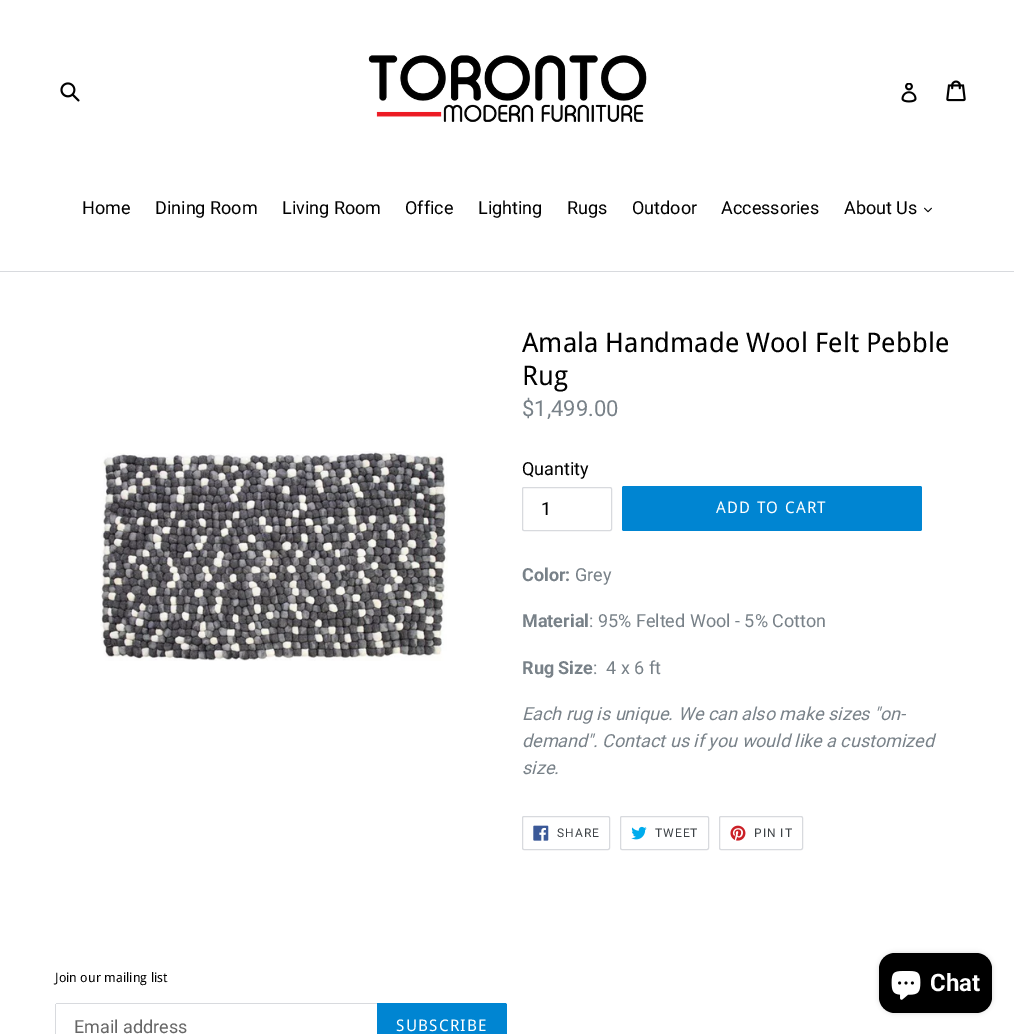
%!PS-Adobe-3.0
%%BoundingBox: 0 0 1014 1034
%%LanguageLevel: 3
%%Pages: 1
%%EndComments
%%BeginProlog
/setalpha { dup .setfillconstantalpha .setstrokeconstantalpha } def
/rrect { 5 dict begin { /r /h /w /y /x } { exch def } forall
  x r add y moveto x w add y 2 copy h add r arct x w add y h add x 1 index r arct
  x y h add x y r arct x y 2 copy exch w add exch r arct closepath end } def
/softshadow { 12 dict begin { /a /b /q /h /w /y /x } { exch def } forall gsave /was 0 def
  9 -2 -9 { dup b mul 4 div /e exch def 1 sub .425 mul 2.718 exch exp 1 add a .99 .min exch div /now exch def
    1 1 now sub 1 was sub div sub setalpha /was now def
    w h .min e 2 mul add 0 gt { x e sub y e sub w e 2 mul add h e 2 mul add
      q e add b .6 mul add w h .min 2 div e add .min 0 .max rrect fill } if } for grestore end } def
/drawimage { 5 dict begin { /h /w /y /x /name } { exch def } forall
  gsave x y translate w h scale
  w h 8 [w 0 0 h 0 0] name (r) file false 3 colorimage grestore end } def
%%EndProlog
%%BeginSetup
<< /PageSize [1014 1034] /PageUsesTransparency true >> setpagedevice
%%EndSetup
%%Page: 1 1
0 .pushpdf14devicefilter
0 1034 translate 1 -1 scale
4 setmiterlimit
1 setgray
0 0 1014 1034 rectfill
(images/1.raw) 60 82 20 20 drawimage
(images/2.raw) 368 55 279 67 drawimage
(images/3.raw) 901 83 16 20 drawimage
(images/4.raw) 946 80 20 22 drawimage
0.847 0.855 0.871 setrgbcolor
0 271 1014 1 rectfill
(images/5.raw) 924 207 8 6 drawimage
(images/6.raw) 100 451 348 210 drawimage
522.5 487.5 89 43 1.5 rrect stroke
0 0.522 0.824 setrgbcolor
622 486 300 45 2 rrect fill
0.847 0.855 0.871 setrgbcolor
522.5 816.5 87 33 1.5 rrect stroke
(images/7.raw) 533 825 16 16 drawimage
620.5 816.5 88 33 1.5 rrect stroke
(images/8.raw) 631 826 16 14 drawimage
719.5 816.5 83 33 1.5 rrect stroke
(images/9.raw) 730 825 16 16 drawimage
56 1003 321 1 rectfill
55 1004 1 30 rectfill
0 0.522 0.824 setrgbcolor
newpath 377 1003 moveto 505 1003 lineto 506 1003 507 1004 507 1005 curveto 507 1034 lineto 507 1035 506 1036 505 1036 curveto 377 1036 lineto closepath fill
0 setgray
879 953 113 60 16 2.5 0.15 softshadow
879 953 113 60 16 rrect fill
(images/10.raw) 891 971 30 29 drawimage
/Roboto-Regular [18 0 0 -18 0 0] selectfont
82 214 moveto (Home) show
155 214 moveto (Dining Room) show
282 214 moveto (Living Room) show
405 214 moveto (Office) show
478 214 moveto (Lighting) show
567 214 moveto (Rugs) show
632 214 moveto (Outdoor) show
721 214 moveto (Accessories) show
844 214 moveto (About Us) show
/DroidSans-Regular [27 0 0 -27 0 0] selectfont
522 352 moveto (Amala Handmade Wool Felt Pebble) show
522 385 moveto (Rug) show
/Roboto-Regular [22 0 0 -22 0 0] selectfont
0.471 0.506 0.533 setrgbcolor
522 416 moveto ($1,499.00) show
/Roboto-Regular [18 0 0 -18 0 0] selectfont
0 setgray
522 475 moveto (Quantity) show
541 515 moveto (1) show
/DroidSans-Regular [16 0 0 -16 0 0] selectfont
1 setgray
716 513 moveto 1.25 0 (ADD TO CART) ashow
/Roboto-Bold [18 0 0 -18 0 0] selectfont
0.471 0.506 0.533 setrgbcolor
522 581 moveto (Color:) show
/Roboto-Regular [18 0 0 -18 0 0] selectfont
575 581 moveto (Grey) show
/Roboto-Bold [18 0 0 -18 0 0] selectfont
522 627 moveto (Material) show
/Roboto-Regular [18 0 0 -18 0 0] selectfont
589 627 moveto (: 95% Felted Wool - 5% Cotton) show
/Roboto-Bold [18 0 0 -18 0 0] selectfont
522 674 moveto (Rug Size) show
/Roboto-Regular [18 0 0 -18 0 0] selectfont
593 674 moveto (:  4 x 6 ft) show
/Roboto-Italic [18 0 0 -18 0 0] selectfont
522 720 moveto (Each rug is unique. We can also make sizes "on-) show
522 747 moveto (demand". Contact us if you would like a customized) show
522 774 moveto (size.) show
/Roboto-Regular [12 0 0 -12 0 0] selectfont
0.239 0.259 0.275 setrgbcolor
557 837 moveto 1 0 (SHARE) ashow
655 837 moveto 1 0 (TWEET) ashow
754 837 moveto 1 0 (PIN IT) ashow
/DroidSans-Regular [13 0 0 -13 0 0] selectfont
0 setgray
55 982 moveto (Join our mailing list) show
/Roboto-Regular [18 0 0 -18 0 0] selectfont
0.4 setgray
74 1033 moveto (Email address) show
/DroidSans-Regular [16 0 0 -16 0 0] selectfont
1 setgray
396 1031 moveto 1.25 0 (SUBSCRIBE) ashow
/Roboto-Bold [24 0 0 -24 0 0] selectfont
930 991 moveto (Chat) show
.poppdf14devicefilter showpage
%%EOF
